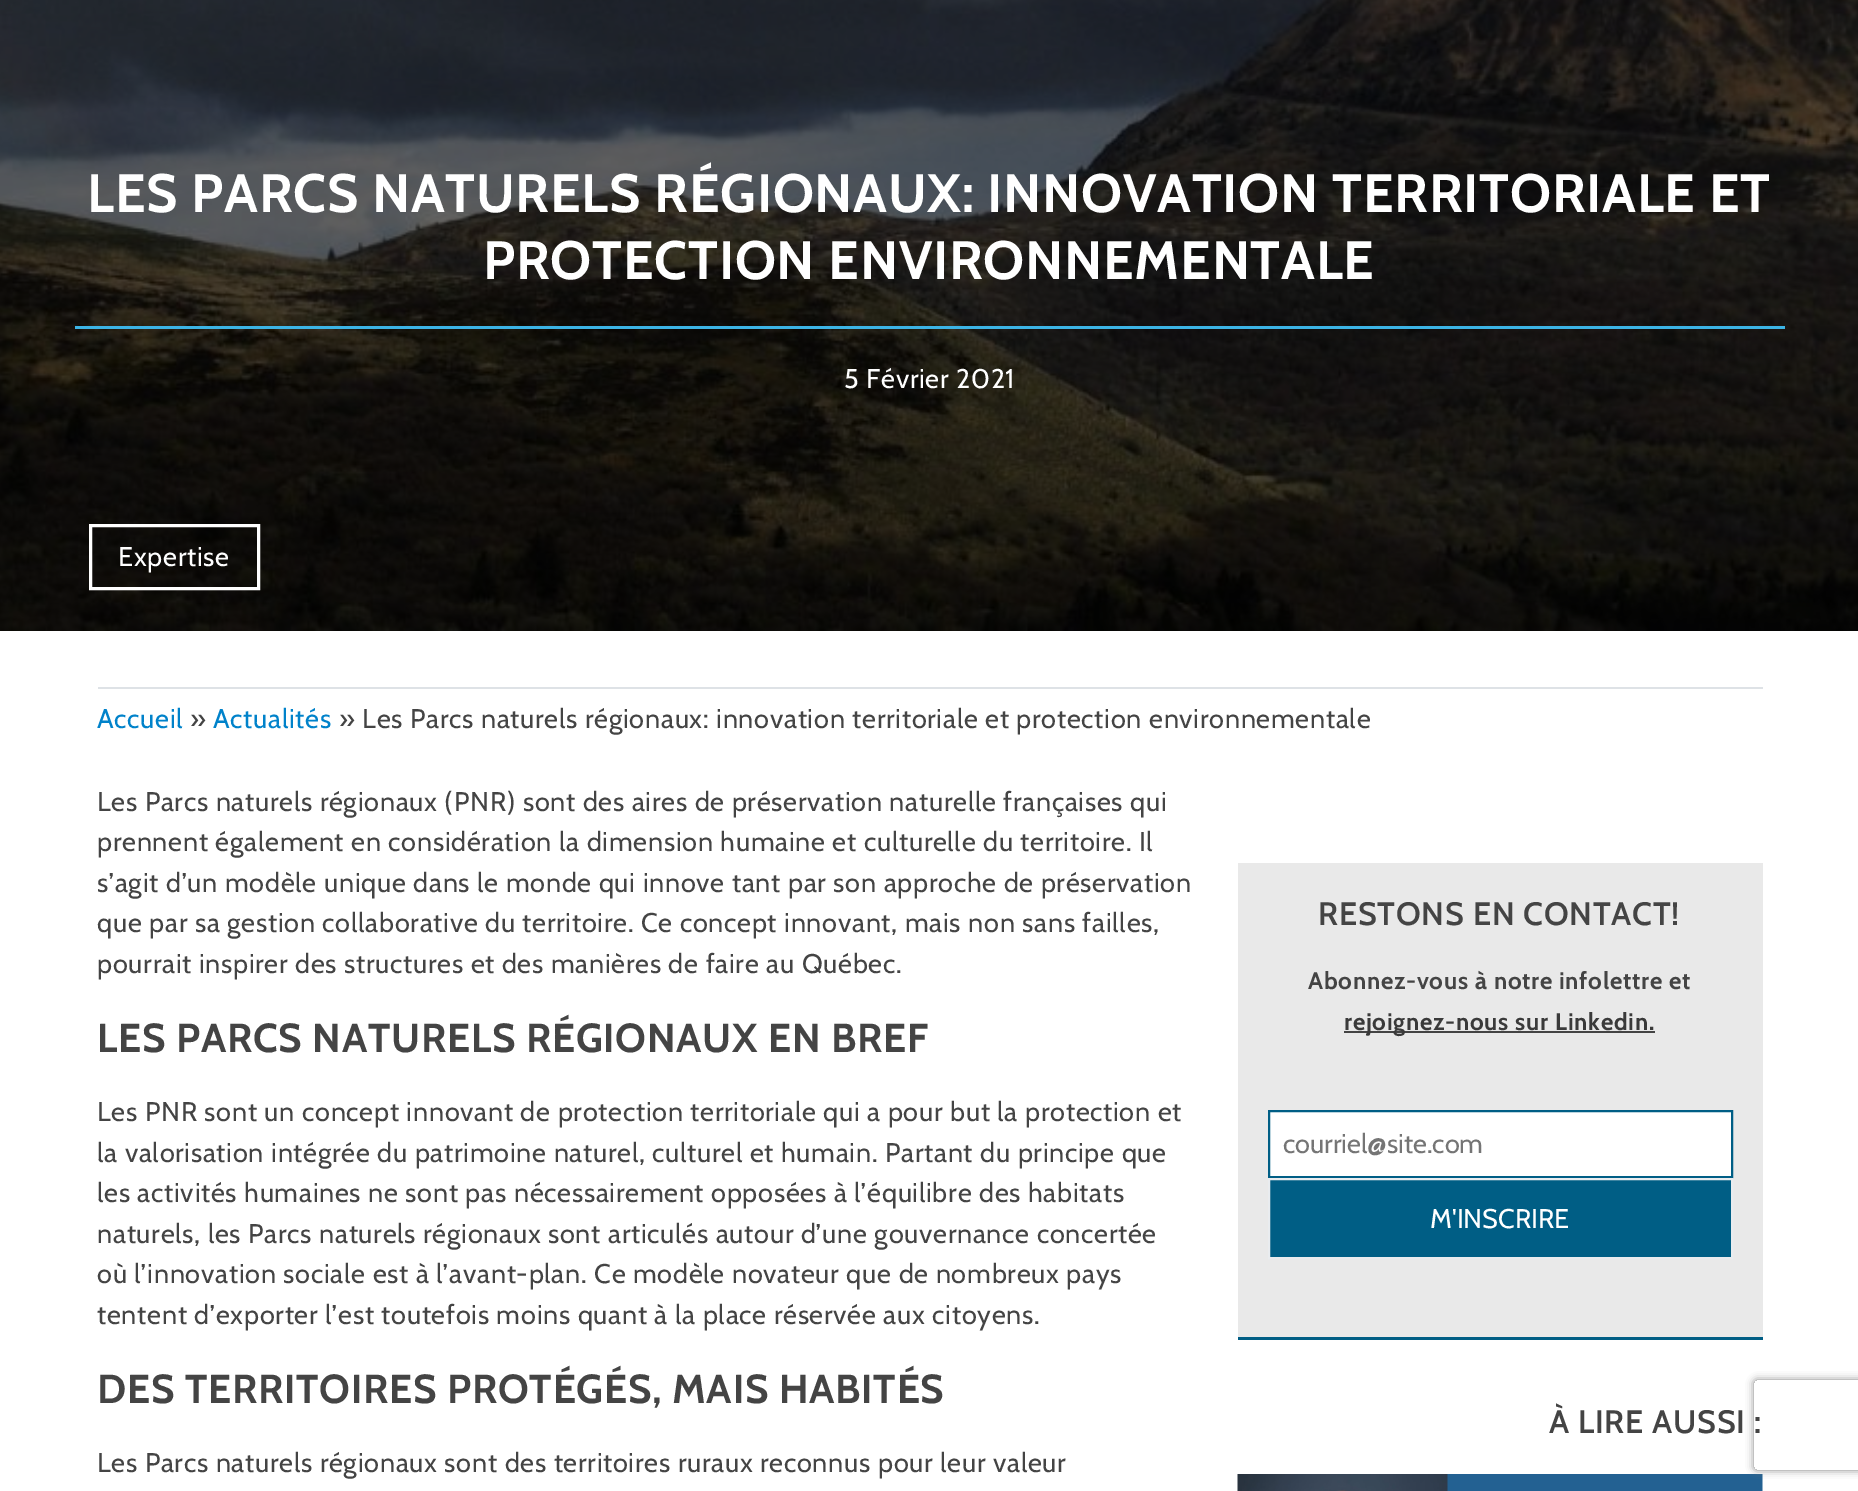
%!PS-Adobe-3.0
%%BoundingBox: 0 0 1858 1491
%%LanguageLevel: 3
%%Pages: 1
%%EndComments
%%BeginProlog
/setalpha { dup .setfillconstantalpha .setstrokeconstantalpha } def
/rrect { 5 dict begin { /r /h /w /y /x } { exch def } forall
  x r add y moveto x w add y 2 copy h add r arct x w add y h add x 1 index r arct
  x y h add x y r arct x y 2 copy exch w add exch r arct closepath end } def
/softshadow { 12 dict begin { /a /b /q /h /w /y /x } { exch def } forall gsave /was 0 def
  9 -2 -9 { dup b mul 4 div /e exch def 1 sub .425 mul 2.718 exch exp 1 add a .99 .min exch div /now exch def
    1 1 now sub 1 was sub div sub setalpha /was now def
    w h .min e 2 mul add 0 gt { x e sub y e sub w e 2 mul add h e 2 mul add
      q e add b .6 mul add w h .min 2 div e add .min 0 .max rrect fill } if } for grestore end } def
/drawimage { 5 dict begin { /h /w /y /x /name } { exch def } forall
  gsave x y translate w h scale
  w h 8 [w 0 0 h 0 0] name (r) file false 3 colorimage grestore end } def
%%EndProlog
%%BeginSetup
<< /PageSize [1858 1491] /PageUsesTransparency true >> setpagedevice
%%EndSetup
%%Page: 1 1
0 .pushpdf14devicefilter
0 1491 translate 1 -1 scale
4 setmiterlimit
1 setgray
0 0 1858 1491 rectfill
(images/1.raw) 0 0 1858 631 drawimage
0.235 0.706 0.898 setrgbcolor
75 326 1710 3 rectfill
1 setgray
3 setlinewidth
90.5 525.5 168 63 rectstroke
0.871 0.886 0.902 setrgbcolor
98 687 1665 2 rectfill
0.914 setgray
1238 863 525 474 rectfill
0 0.369 0.522 setrgbcolor
1238 1337 525 3 rectfill
0.267 setgray
1344 1031 311 2 rectfill
1 setgray
newpath 1269 1111 moveto 1732 1111 lineto 1732 1177 lineto 1269 1177 lineto closepath gsave fill grestore
0 0.369 0.522 setrgbcolor
2 setlinewidth
stroke
newpath 1269 1179 moveto 1732 1179 lineto 1732 1258 lineto 1269 1258 lineto closepath gsave fill grestore
0.914 0.925 0.937 setrgbcolor
stroke
(images/2.raw) 1237 1474 526 17 drawimage
gsave
newpath 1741 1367 moveto 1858 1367 lineto 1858 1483 lineto 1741 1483 lineto closepath 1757 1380 moveto 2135 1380 lineto 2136.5 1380 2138 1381.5 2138 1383 curveto 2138 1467 lineto 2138 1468.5 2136.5 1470 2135 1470 curveto 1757 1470 lineto 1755.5 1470 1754 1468.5 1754 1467 curveto 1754 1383 lineto 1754 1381.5 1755.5 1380 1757 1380 curveto closepath eoclip newpath
0.502 setgray
1754 1380 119 90 3 4 1 softshadow
grestore
/Cabin-Bold [54 0 0 -54 0 0] selectfont
1 setgray
87 212 moveto 0.75 0 (LES PARCS NATURELS RÉGIONAUX: INNOVATION TERRITORIALE ET) ashow
483 279 moveto 0.75 0 (PROTECTION ENVIRONNEMENTALE) ashow
/Cabin-Regular [27 0 0 -27 0 0] selectfont
844 388 moveto 0.75 0 (5 Février 2021) ashow
118 566 moveto 0.75 0 (Expertise) ashow
0 0.51 0.792 setrgbcolor
97 728 moveto 0.75 0 (Accueil) ashow
0.267 setgray
190 728 moveto 0.75 0 (») ashow
0 0.51 0.792 setrgbcolor
213 728 moveto 0.75 0 (Actualités) ashow
0.267 setgray
339 728 moveto 0.75 0 (» Les Parcs naturels régionaux: innovation territoriale et protection environnementale) ashow
97 811 moveto 0.75 0 (Les Parcs naturels régionaux \(PNR\) sont des aires de préservation naturelle françaises qui) ashow
97 851 moveto 0.75 0 (prennent également en considération la dimension humaine et culturelle du territoire. Il) ashow
97 892 moveto 0.75 0 (s’agit d’un modèle unique dans le monde qui innove tant par son approche de préservation) ashow
97 932 moveto 0.75 0 (que par sa gestion collaborative du territoire. Ce concept innovant, mais non sans failles,) ashow
97 973 moveto 0.75 0 (pourrait inspirer des structures et des manières de faire au Québec.) ashow
/Cabin-Bold [40.5 0 0 -40.5 0 0] selectfont
97 1052 moveto 0.75 0 (LES PARCS NATURELS RÉGIONAUX EN BREF) ashow
/Cabin-Regular [27 0 0 -27 0 0] selectfont
97 1121 moveto 0.75 0 (Les PNR sont un concept innovant de protection territoriale qui a pour but la protection et) ashow
97 1162 moveto 0.75 0 (la valorisation intégrée du patrimoine naturel, culturel et humain. Partant du principe que) ashow
97 1202 moveto 0.75 0 (les activités humaines ne sont pas nécessairement opposées à l’équilibre des habitats) ashow
97 1243 moveto 0.75 0 (naturels, les Parcs naturels régionaux sont articulés autour d’une gouvernance concertée) ashow
97 1283 moveto 0.75 0 (où l’innovation sociale est à l’avant-plan. Ce modèle novateur que de nombreux pays) ashow
97 1324 moveto 0.75 0 (tentent d’exporter l’est toutefois moins quant à la place réservée aux citoyens.) ashow
/Cabin-Bold [40.5 0 0 -40.5 0 0] selectfont
97 1403 moveto 0.75 0 (DES TERRITOIRES PROTÉGÉS, MAIS HABITÉS) ashow
/Cabin-Regular [27 0 0 -27 0 0] selectfont
97 1472 moveto 0.75 0 (Les Parcs naturels régionaux sont des territoires ruraux reconnus pour leur valeur) ashow
/Cabin-SemiBold [32.4 0 0 -32.4 0 0] selectfont
1318 925 moveto 0.75 0 (RESTONS EN CONTACT!) ashow
/Cabin-Bold [24 0 0 -24 0 0] selectfont
1308 989 moveto 0.75 0 (Abonnez-vous à notre infolettre et) ashow
0.227 setgray
1344 1030 moveto 0.75 0 (rejoignez-nous sur Linkedin.) ashow
/Cabin-Regular [27 0 0 -27 0 0] selectfont
0.459 setgray
1283 1153 moveto (courriel@site.com) show
1 setgray
1430 1228 moveto (M'INSCRIRE) show
/Cabin-SemiBold [32.4 0 0 -32.4 0 0] selectfont
0.267 setgray
1549 1433 moveto 0.75 0 (À LIRE AUSSI :) ashow
.poppdf14devicefilter showpage
%%EOF
